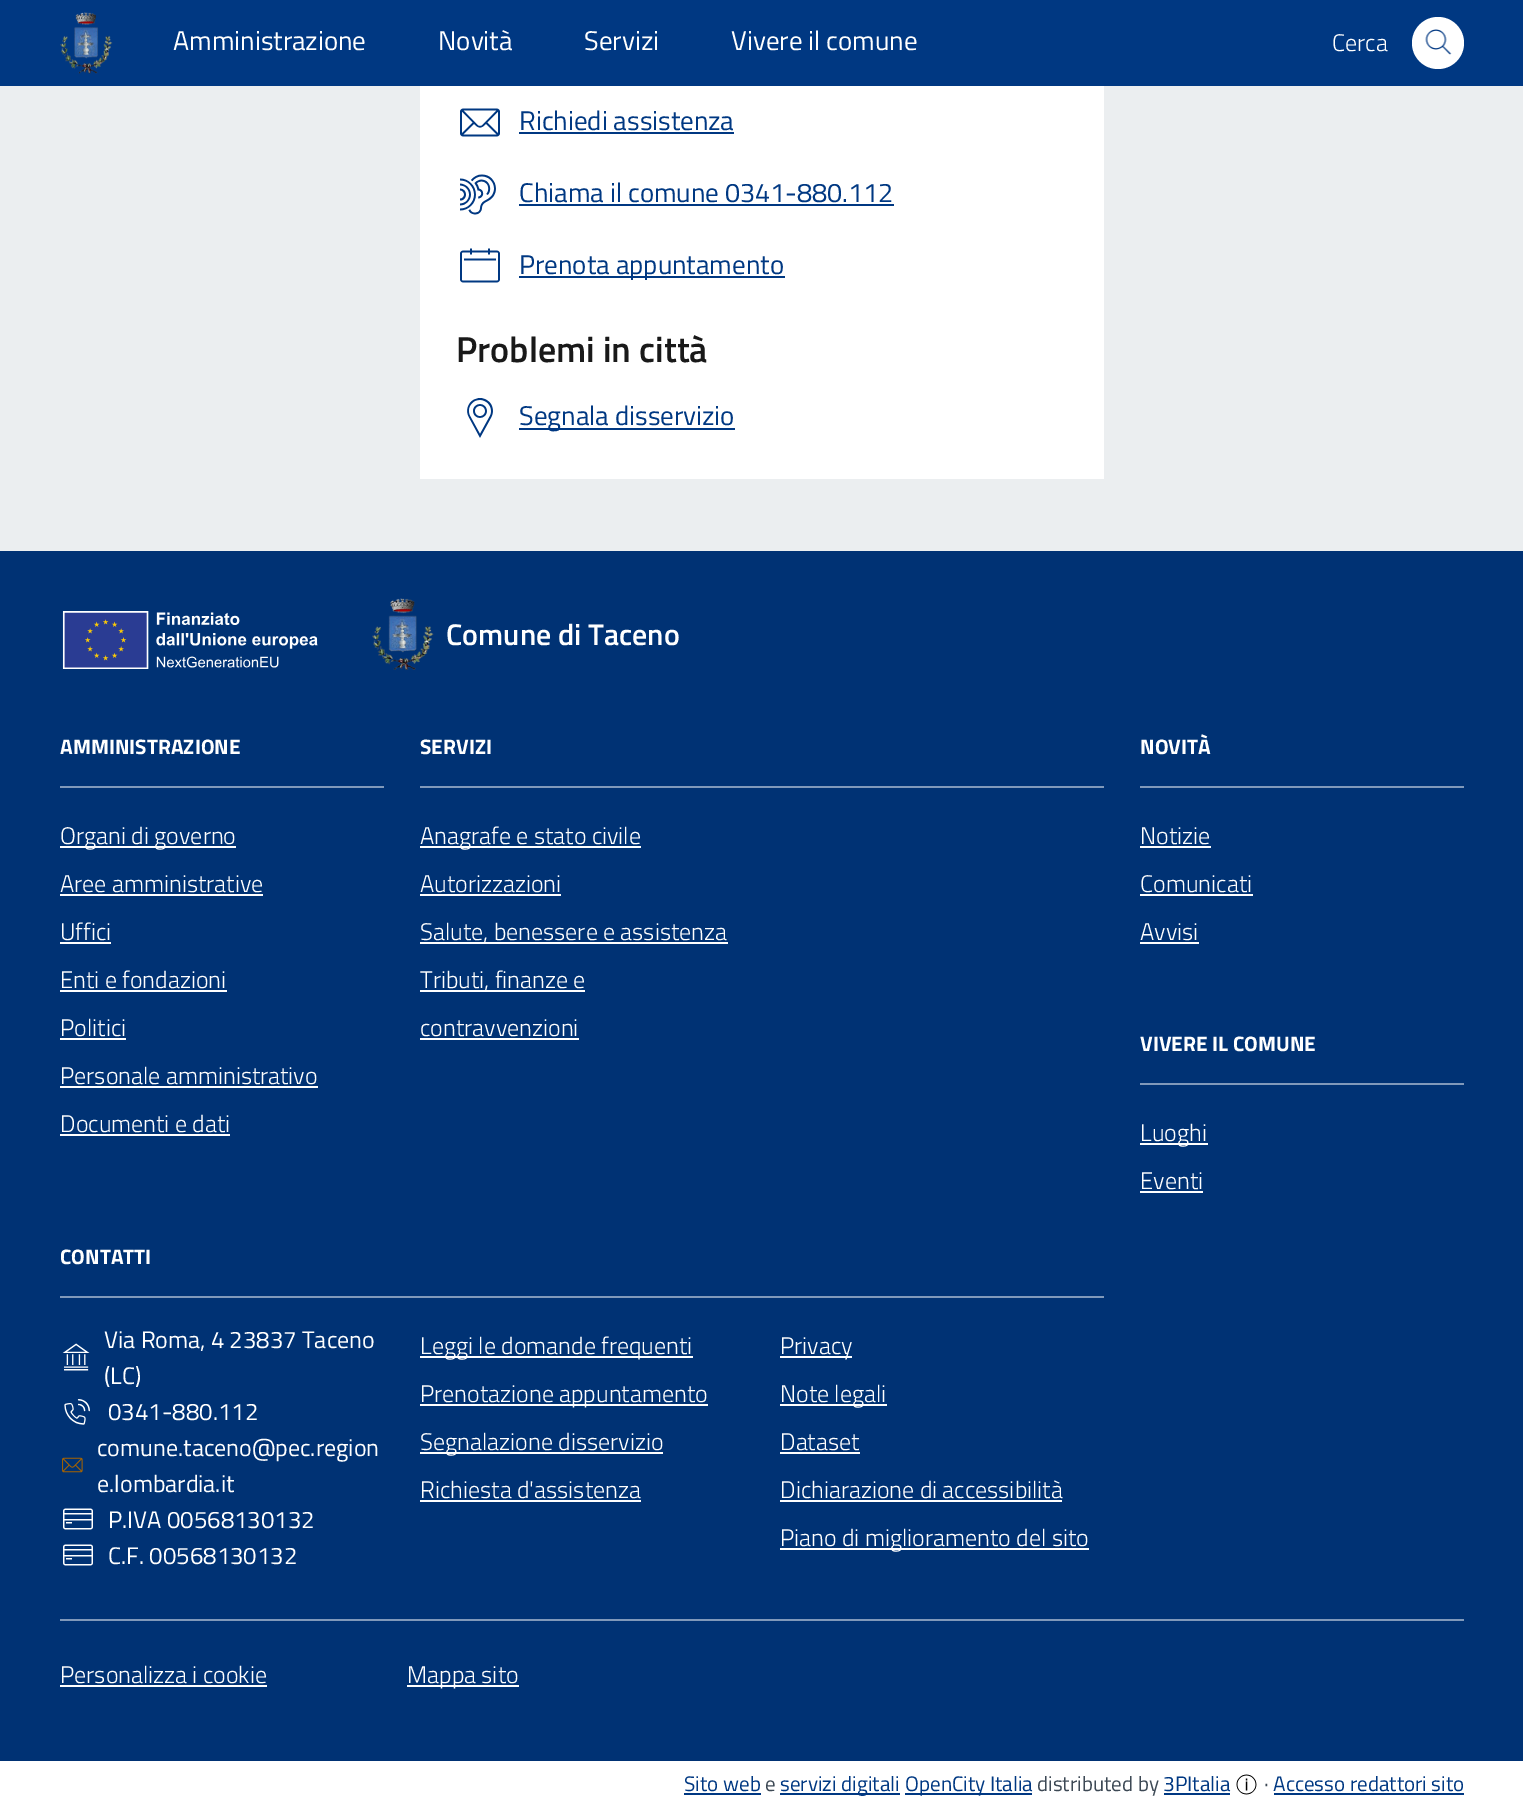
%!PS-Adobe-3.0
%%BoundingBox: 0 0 1523 1805
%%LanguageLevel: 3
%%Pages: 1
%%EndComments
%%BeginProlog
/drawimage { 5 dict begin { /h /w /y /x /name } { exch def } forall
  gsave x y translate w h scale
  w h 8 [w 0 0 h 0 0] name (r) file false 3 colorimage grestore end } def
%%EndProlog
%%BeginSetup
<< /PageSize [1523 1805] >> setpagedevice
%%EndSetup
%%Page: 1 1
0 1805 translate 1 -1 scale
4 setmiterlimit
1 setgray
0 0 1523 1805 rectfill
0 0.22 0.51 setrgbcolor
0 0 1523 86 rectfill
(images/1.raw) 60 12 53 62 drawimage
1 setgray
newpath 1438 43 26 0 360 arc closepath fill
(images/2.raw) 1425 29 27 26 drawimage
0.922 0.933 0.941 setrgbcolor
0 86 1523 465 rectfill
1 setgray
420 86 684 393 rectfill
(images/3.raw) 460 108 40 29 drawimage
0 0.22 0.51 setrgbcolor
519 132 215 2 rectfill
(images/4.raw) 460 174 36 41 drawimage
519 204 375 2 rectfill
(images/5.raw) 460 248 40 35 drawimage
519 276 266 2 rectfill
(images/6.raw) 467 398 26 40 drawimage
519 428 216 2 rectfill
0 0.196 0.455 setrgbcolor
0 551 1523 1210 rectfill
(images/7.raw) 62 611 256 58 drawimage
(images/8.raw) 372 598 62 72 drawimage
0.502 0.6 0.729 setrgbcolor
60 786 324 2 rectfill
1 setgray
60 846 176 2 rectfill
60 894 203 2 rectfill
60 942 51 2 rectfill
60 990 167 2 rectfill
60 1038 66 2 rectfill
60 1086 258 2 rectfill
60 1134 170 2 rectfill
0.502 0.6 0.729 setrgbcolor
420 786 684 2 rectfill
1 setgray
420 846 221 2 rectfill
420 894 141 2 rectfill
420 942 308 2 rectfill
420 990 165 2 rectfill
420 1038 159 2 rectfill
0.502 0.6 0.729 setrgbcolor
1140 786 324 2 rectfill
1 setgray
1140 846 71 2 rectfill
1140 894 113 2 rectfill
1140 942 59 2 rectfill
0.502 0.6 0.729 setrgbcolor
1140 1083 324 2 rectfill
1 setgray
1140 1143 68 2 rectfill
1140 1191 63 2 rectfill
0.502 0.6 0.729 setrgbcolor
60 1296 1044 2 rectfill
(images/9.raw) 62 1343 28 28 drawimage
(images/10.raw) 64 1399 26 26 drawimage
(images/11.raw) 62 1457 21 16 drawimage
(images/12.raw) 63 1508 30 22 drawimage
(images/12.raw) 63 1544 30 22 drawimage
1 setgray
420 1356 273 2 rectfill
420 1404 288 2 rectfill
420 1452 243 2 rectfill
420 1500 221 2 rectfill
780 1356 72 2 rectfill
780 1404 107 2 rectfill
780 1452 80 2 rectfill
780 1500 282 2 rectfill
780 1548 309 2 rectfill
0.502 0.6 0.729 setrgbcolor
60 1619 1404 2 rectfill
1 setgray
60 1685 207 2 rectfill
407 1685 112 2 rectfill
0 0.22 0.51 setrgbcolor
684 1793 77 2 rectfill
780 1793 120 2 rectfill
905 1793 127 2 rectfill
1164 1793 66 2 rectfill
(images/13.raw) 1236 1774 21 21 drawimage
1274 1793 190 2 rectfill
/TitilliumWeb-Regular [27 0 0 -27 0 0] selectfont
1 setgray
173 50 moveto (Amministrazione) show
438 50 moveto (Novità) show
584 50 moveto (Servizi) show
731 50 moveto (Vivere il comune) show
/TitilliumWeb-Light [24 0 0 -24 0 0] selectfont
1332 51 moveto (Cerca) show
/TitilliumWeb-Regular [27 0 0 -27 0 0] selectfont
0 0.22 0.51 setrgbcolor
519 130 moveto (Richiedi assistenza) show
519 202 moveto (Chiama il comune 0341-880.112) show
519 274 moveto (Prenota appuntamento) show
/TitilliumWeb-SemiBold [36 0 0 -36 0 0] selectfont
0.098 setgray
456 362 moveto (Problemi in città) show
/TitilliumWeb-Regular [27 0 0 -27 0 0] selectfont
0 0.22 0.51 setrgbcolor
519 425 moveto (Segnala disservizio) show
/TitilliumWeb-SemiBold [30 0 0 -30 0 0] selectfont
1 setgray
446 645 moveto (Comune di Taceno) show
/TitilliumWeb-Bold [21 0 0 -21 0 0] selectfont
60 754 moveto (AMMINISTRAZIONE) show
/TitilliumWeb-Light [24 0 0 -24 0 0] selectfont
60 844 moveto (Organi di governo) show
60 892 moveto (Aree amministrative) show
60 940 moveto (Uffici) show
60 988 moveto (Enti e fondazioni) show
60 1036 moveto (Politici) show
60 1084 moveto (Personale amministrativo) show
60 1132 moveto (Documenti e dati) show
/TitilliumWeb-Bold [21 0 0 -21 0 0] selectfont
420 754 moveto (SERVIZI) show
/TitilliumWeb-Light [24 0 0 -24 0 0] selectfont
420 844 moveto (Anagrafe e stato civile) show
420 892 moveto (Autorizzazioni) show
420 940 moveto (Salute, benessere e assistenza) show
420 988 moveto (Tributi, finanze e) show
420 1036 moveto (contravvenzioni) show
/TitilliumWeb-Bold [21 0 0 -21 0 0] selectfont
1140 754 moveto (NOVITÀ) show
/TitilliumWeb-Light [24 0 0 -24 0 0] selectfont
1140 844 moveto (Notizie) show
1140 892 moveto (Comunicati) show
1140 940 moveto (Avvisi) show
/TitilliumWeb-Bold [21 0 0 -21 0 0] selectfont
1140 1051 moveto (VIVERE IL COMUNE) show
/TitilliumWeb-Light [24 0 0 -24 0 0] selectfont
1140 1141 moveto (Luoghi) show
1140 1189 moveto (Eventi) show
/TitilliumWeb-Bold [21 0 0 -21 0 0] selectfont
60 1264 moveto (CONTATTI) show
/TitilliumWeb-Regular [24 0 0 -24 0 0] selectfont
104 1348 moveto (Via Roma, 4 23837 Taceno) show
104 1384 moveto (\(LC\)) show
108 1420 moveto (0341-880.112) show
97 1456 moveto (comune.taceno@pec.region) show
97 1492 moveto (e.lombardia.it) show
108 1528 moveto (P.IVA 00568130132) show
108 1564 moveto (C.F. 00568130132) show
/TitilliumWeb-Light [24 0 0 -24 0 0] selectfont
420 1354 moveto (Leggi le domande frequenti) show
420 1402 moveto (Prenotazione appuntamento) show
420 1450 moveto (Segnalazione disservizio) show
420 1498 moveto (Richiesta d'assistenza) show
780 1354 moveto (Privacy) show
780 1402 moveto (Note legali) show
780 1450 moveto (Dataset) show
780 1498 moveto (Dichiarazione di accessibilità) show
780 1546 moveto (Piano di miglioramento del sito) show
60 1683 moveto (Personalizza i cookie) show
407 1683 moveto (Mappa sito) show
/TitilliumWeb-Regular [21 0 0 -21 0 0] selectfont
0 0.22 0.51 setrgbcolor
684 1791 moveto (Sito web) show
0.239 0.286 0.333 setrgbcolor
765 1791 moveto (e) show
0 0.22 0.51 setrgbcolor
780 1791 moveto (servizi digitali) show
905 1791 moveto (OpenCity Italia) show
0.239 0.286 0.333 setrgbcolor
1037 1791 moveto (distributed by) show
0 0.22 0.51 setrgbcolor
1163 1791 moveto (3PItalia) show
0.239 0.286 0.333 setrgbcolor
1264 1791 moveto (·) show
0 0.22 0.51 setrgbcolor
1273 1791 moveto (Accesso redattori sito) show
showpage
%%EOF
